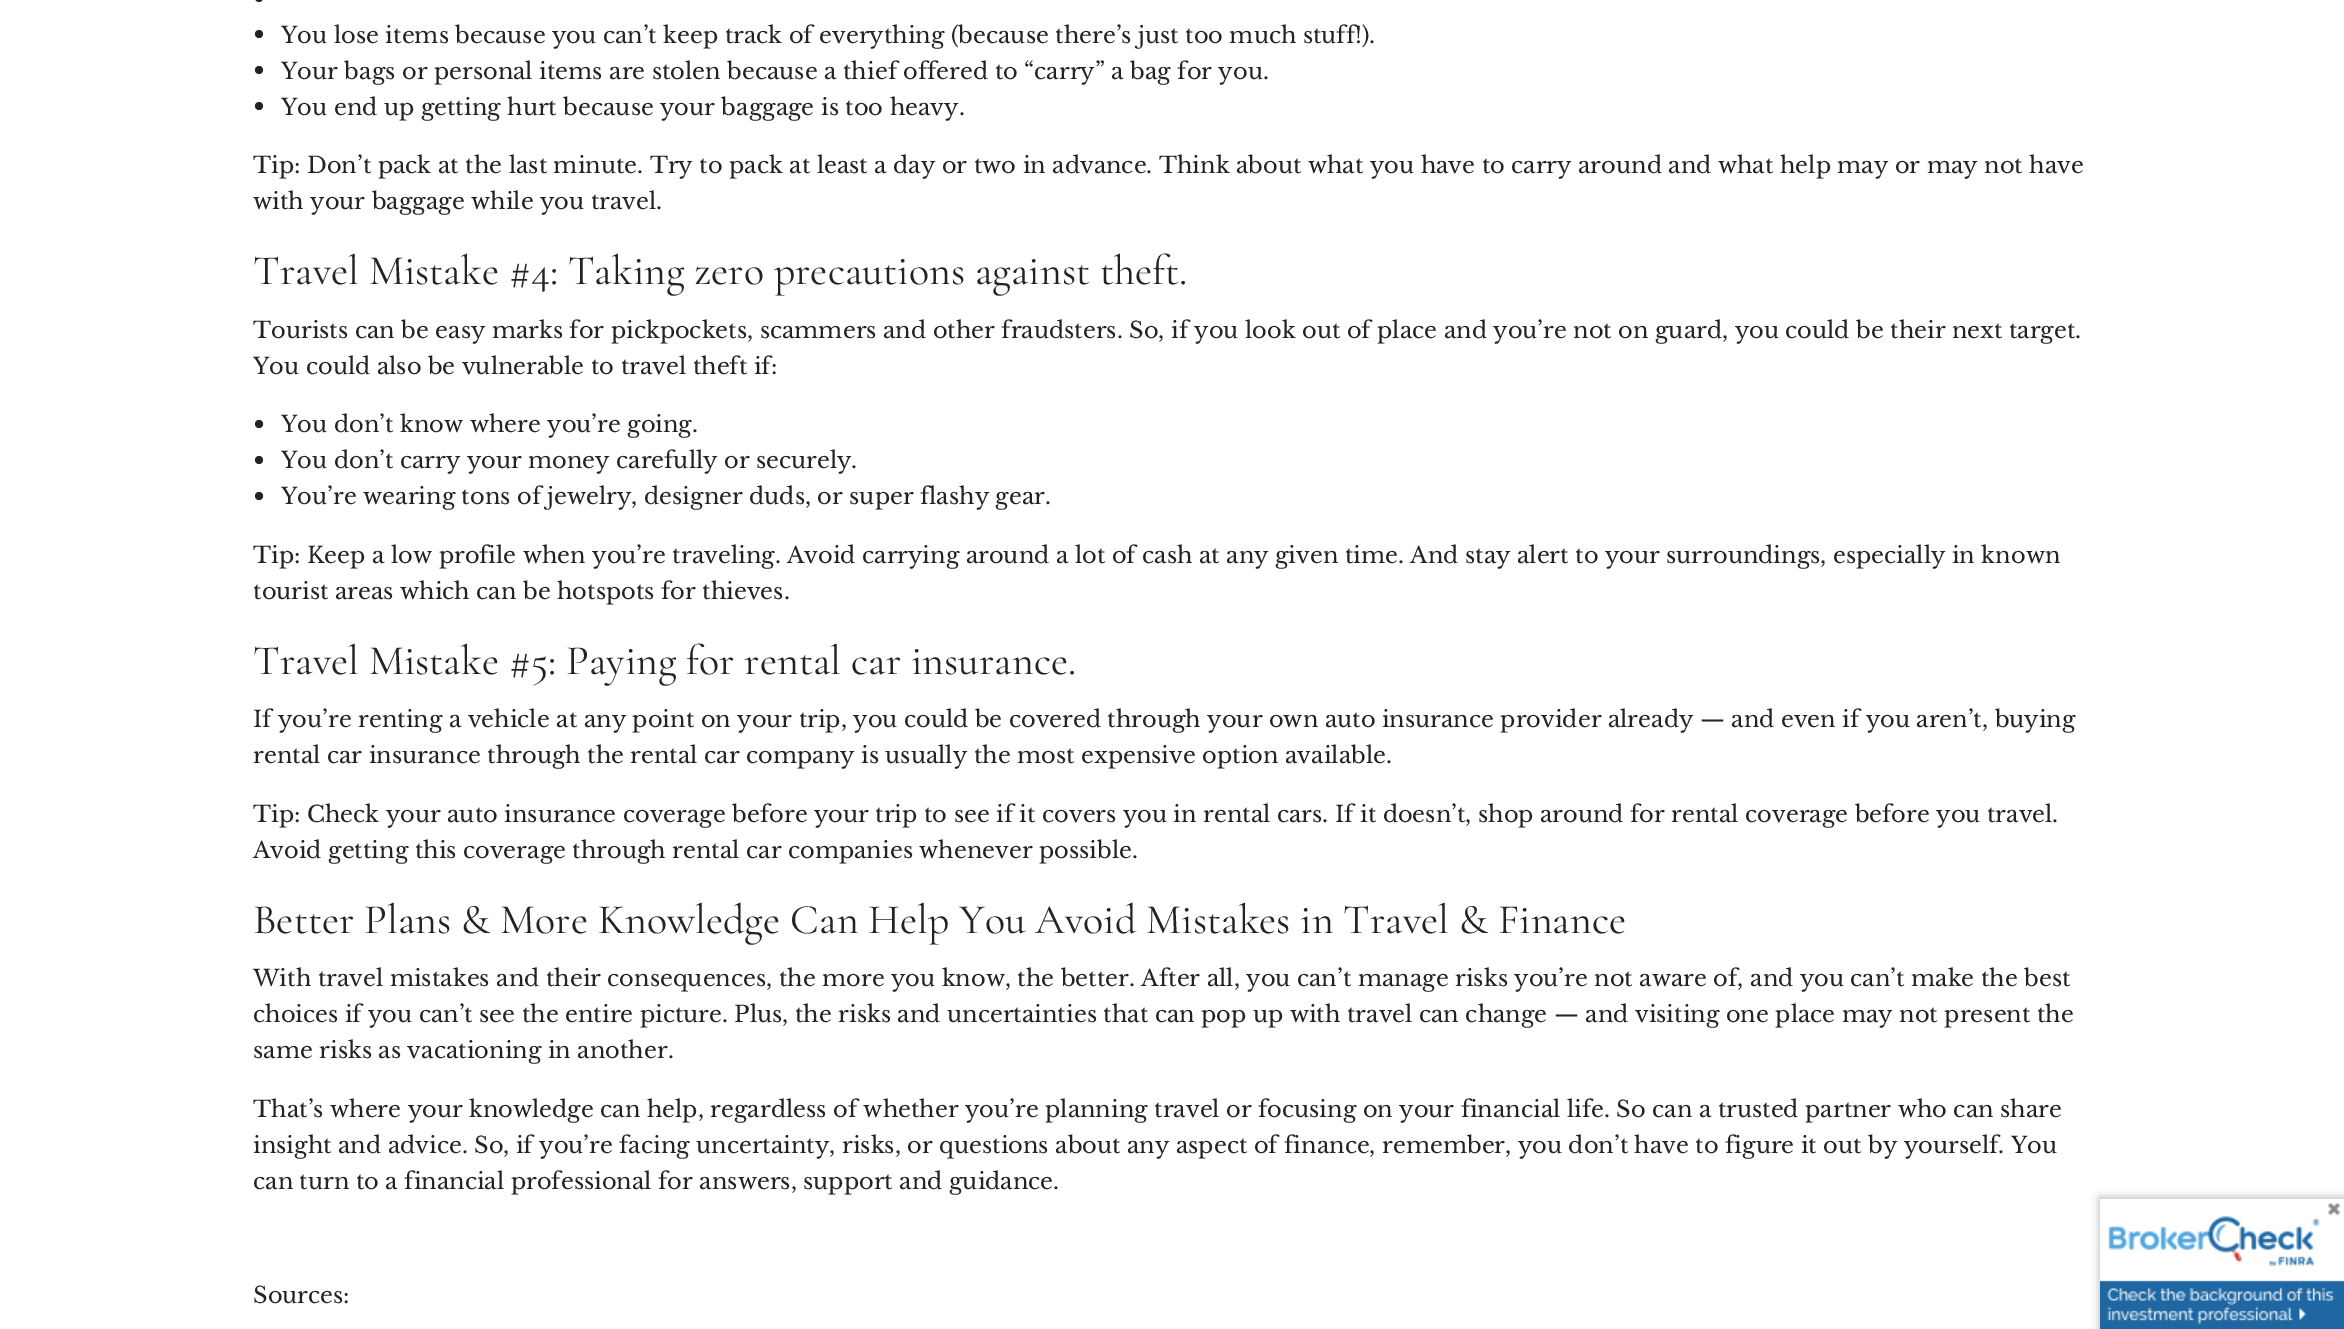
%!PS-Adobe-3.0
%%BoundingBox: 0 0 2344 1329
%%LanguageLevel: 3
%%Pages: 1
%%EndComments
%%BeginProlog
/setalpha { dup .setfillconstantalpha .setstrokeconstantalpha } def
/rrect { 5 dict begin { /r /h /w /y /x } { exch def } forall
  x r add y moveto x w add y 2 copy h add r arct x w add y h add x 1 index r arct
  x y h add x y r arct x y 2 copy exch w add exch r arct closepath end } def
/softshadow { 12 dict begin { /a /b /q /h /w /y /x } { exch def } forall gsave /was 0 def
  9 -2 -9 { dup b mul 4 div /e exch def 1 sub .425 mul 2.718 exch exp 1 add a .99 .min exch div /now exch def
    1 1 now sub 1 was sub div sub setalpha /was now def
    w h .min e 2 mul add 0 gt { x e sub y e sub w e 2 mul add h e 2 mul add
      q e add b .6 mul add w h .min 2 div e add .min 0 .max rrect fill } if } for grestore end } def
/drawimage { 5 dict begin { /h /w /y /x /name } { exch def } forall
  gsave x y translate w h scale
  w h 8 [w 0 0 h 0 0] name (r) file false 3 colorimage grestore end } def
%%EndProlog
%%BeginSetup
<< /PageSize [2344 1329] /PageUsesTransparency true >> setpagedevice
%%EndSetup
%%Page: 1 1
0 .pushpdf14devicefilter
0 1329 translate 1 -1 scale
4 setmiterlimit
1 setgray
0 0 2344 1329 rectfill
0.137 setgray
255 -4 8 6 4 rrect fill
newpath 259 34 4 0 360 arc closepath fill
newpath 259 70 4 0 360 arc closepath fill
newpath 259 106 4 0 360 arc closepath fill
newpath 259 424 4 0 360 arc closepath fill
newpath 259 460 4 0 360 arc closepath fill
newpath 259 496 4 0 360 arc closepath fill
gsave
newpath 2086 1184 moveto 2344 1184 lineto 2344 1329 lineto 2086 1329 lineto closepath 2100 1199 moveto 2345 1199 lineto 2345 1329 lineto 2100 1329 lineto closepath eoclip newpath
0 setgray
2099 1197 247 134 0 4 0.25 softshadow
grestore
(images/1.raw) 2100 1202 244 127 drawimage
/LibreBaskerville-Regular [22.5 0 0 -22.5 0 0] selectfont
281 43 moveto (You lose items because you can’t keep track of everything \(because there’s just too much stuff!\).) show
281 79 moveto (Your bags or personal items are stolen because a thief offered to “carry” a bag for you.) show
281 115 moveto (You end up getting hurt because your baggage is too heavy.) show
253 173 moveto (Tip: Don’t pack at the last minute. Try to pack at least a day or two in advance. Think about what you have to carry around and what help may or may not have) show
253 209 moveto (with your baggage while you travel.) show
/CormorantGaramond-Regular [42 0 0 -42 0 0] selectfont
253 284 moveto (Travel Mistake #4: Taking zero precautions against theft.) show
/LibreBaskerville-Regular [22.5 0 0 -22.5 0 0] selectfont
253 338 moveto (Tourists can be easy marks for pickpockets, scammers and other fraudsters. So, if you look out of place and you’re not on guard, you could be their next target.) show
253 374 moveto (You could also be vulnerable to travel theft if:) show
281 432 moveto (You don’t know where you’re going.) show
281 468 moveto (You don’t carry your money carefully or securely.) show
281 504 moveto (You’re wearing tons of jewelry, designer duds, or super flashy gear.) show
253 563 moveto (Tip: Keep a low profile when you’re traveling. Avoid carrying around a lot of cash at any given time. And stay alert to your surroundings, especially in known) show
253 599 moveto (tourist areas which can be hotspots for thieves.) show
/CormorantGaramond-Regular [42 0 0 -42 0 0] selectfont
253 674 moveto (Travel Mistake #5: Paying for rental car insurance.) show
/LibreBaskerville-Regular [22.5 0 0 -22.5 0 0] selectfont
253 727 moveto (If you’re renting a vehicle at any point on your trip, you could be covered through your own auto insurance provider already — and even if you aren’t, buying) show
253 763 moveto (rental car insurance through the rental car company is usually the most expensive option available.) show
253 822 moveto (Tip: Check your auto insurance coverage before your trip to see if it covers you in rental cars. If it doesn’t, shop around for rental coverage before you travel.) show
253 858 moveto (Avoid getting this coverage through rental car companies whenever possible.) show
/CormorantGaramond-Regular [42 0 0 -42 0 0] selectfont
253 933 moveto (Better Plans & More Knowledge Can Help You Avoid Mistakes in Travel & Finance) show
/LibreBaskerville-Regular [22.5 0 0 -22.5 0 0] selectfont
253 986 moveto (With travel mistakes and their consequences, the more you know, the better. After all, you can’t manage risks you’re not aware of, and you can’t make the best) show
253 1022 moveto (choices if you can’t see the entire picture. Plus, the risks and uncertainties that can pop up with travel can change — and visiting one place may not present the) show
253 1058 moveto (same risks as vacationing in another.) show
253 1117 moveto (That’s where your knowledge can help, regardless of whether you’re planning travel or focusing on your financial life. So can a trusted partner who can share) show
253 1153 moveto (insight and advice. So, if you’re facing uncertainty, risks, or questions about any aspect of finance, remember, you don’t have to figure it out by yourself. You) show
253 1189 moveto (can turn to a financial professional for answers, support and guidance.) show
253 1303 moveto (Sources:) show
.poppdf14devicefilter showpage
%%EOF
